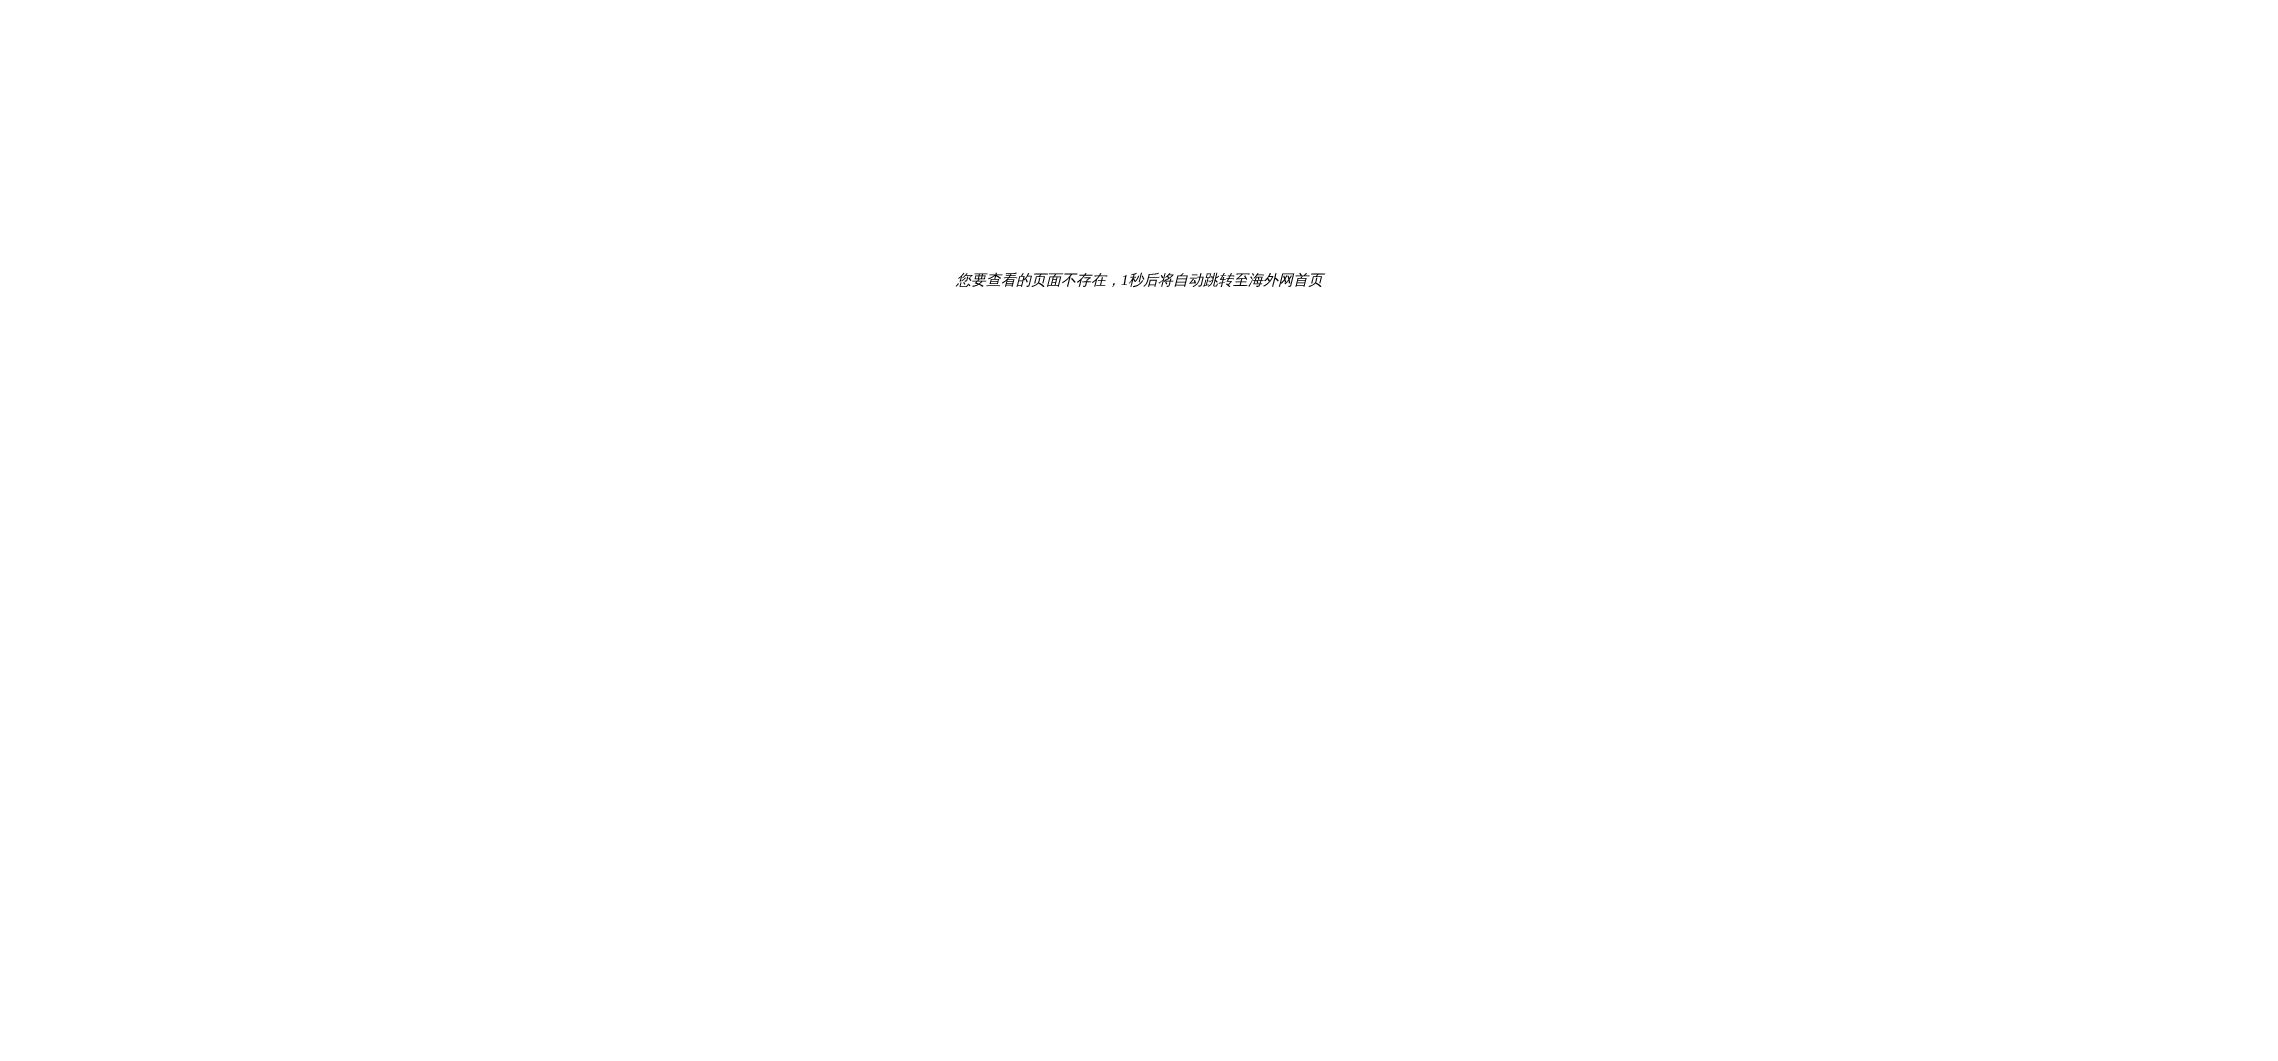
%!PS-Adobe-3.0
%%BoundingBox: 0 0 2278 1061
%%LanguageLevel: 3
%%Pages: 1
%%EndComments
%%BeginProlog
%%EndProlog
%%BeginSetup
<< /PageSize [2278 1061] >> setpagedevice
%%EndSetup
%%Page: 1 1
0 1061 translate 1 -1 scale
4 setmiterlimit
1 setgray
0 0 2278 1061 rectfill
/WenQuanYiZenHei-MediumItalic [15 0 0 -15 0 0] selectfont
0 setgray
956 285 moveto (您要查看的页面不存在，) show
/LiberationSerif-Italic [15 0 0 -15 0 0] selectfont
1121 285 moveto (1) show
/WenQuanYiZenHei-MediumItalic [15 0 0 -15 0 0] selectfont
1128 285 moveto (秒后将自动跳转至海外网首页) show
showpage
%%EOF
